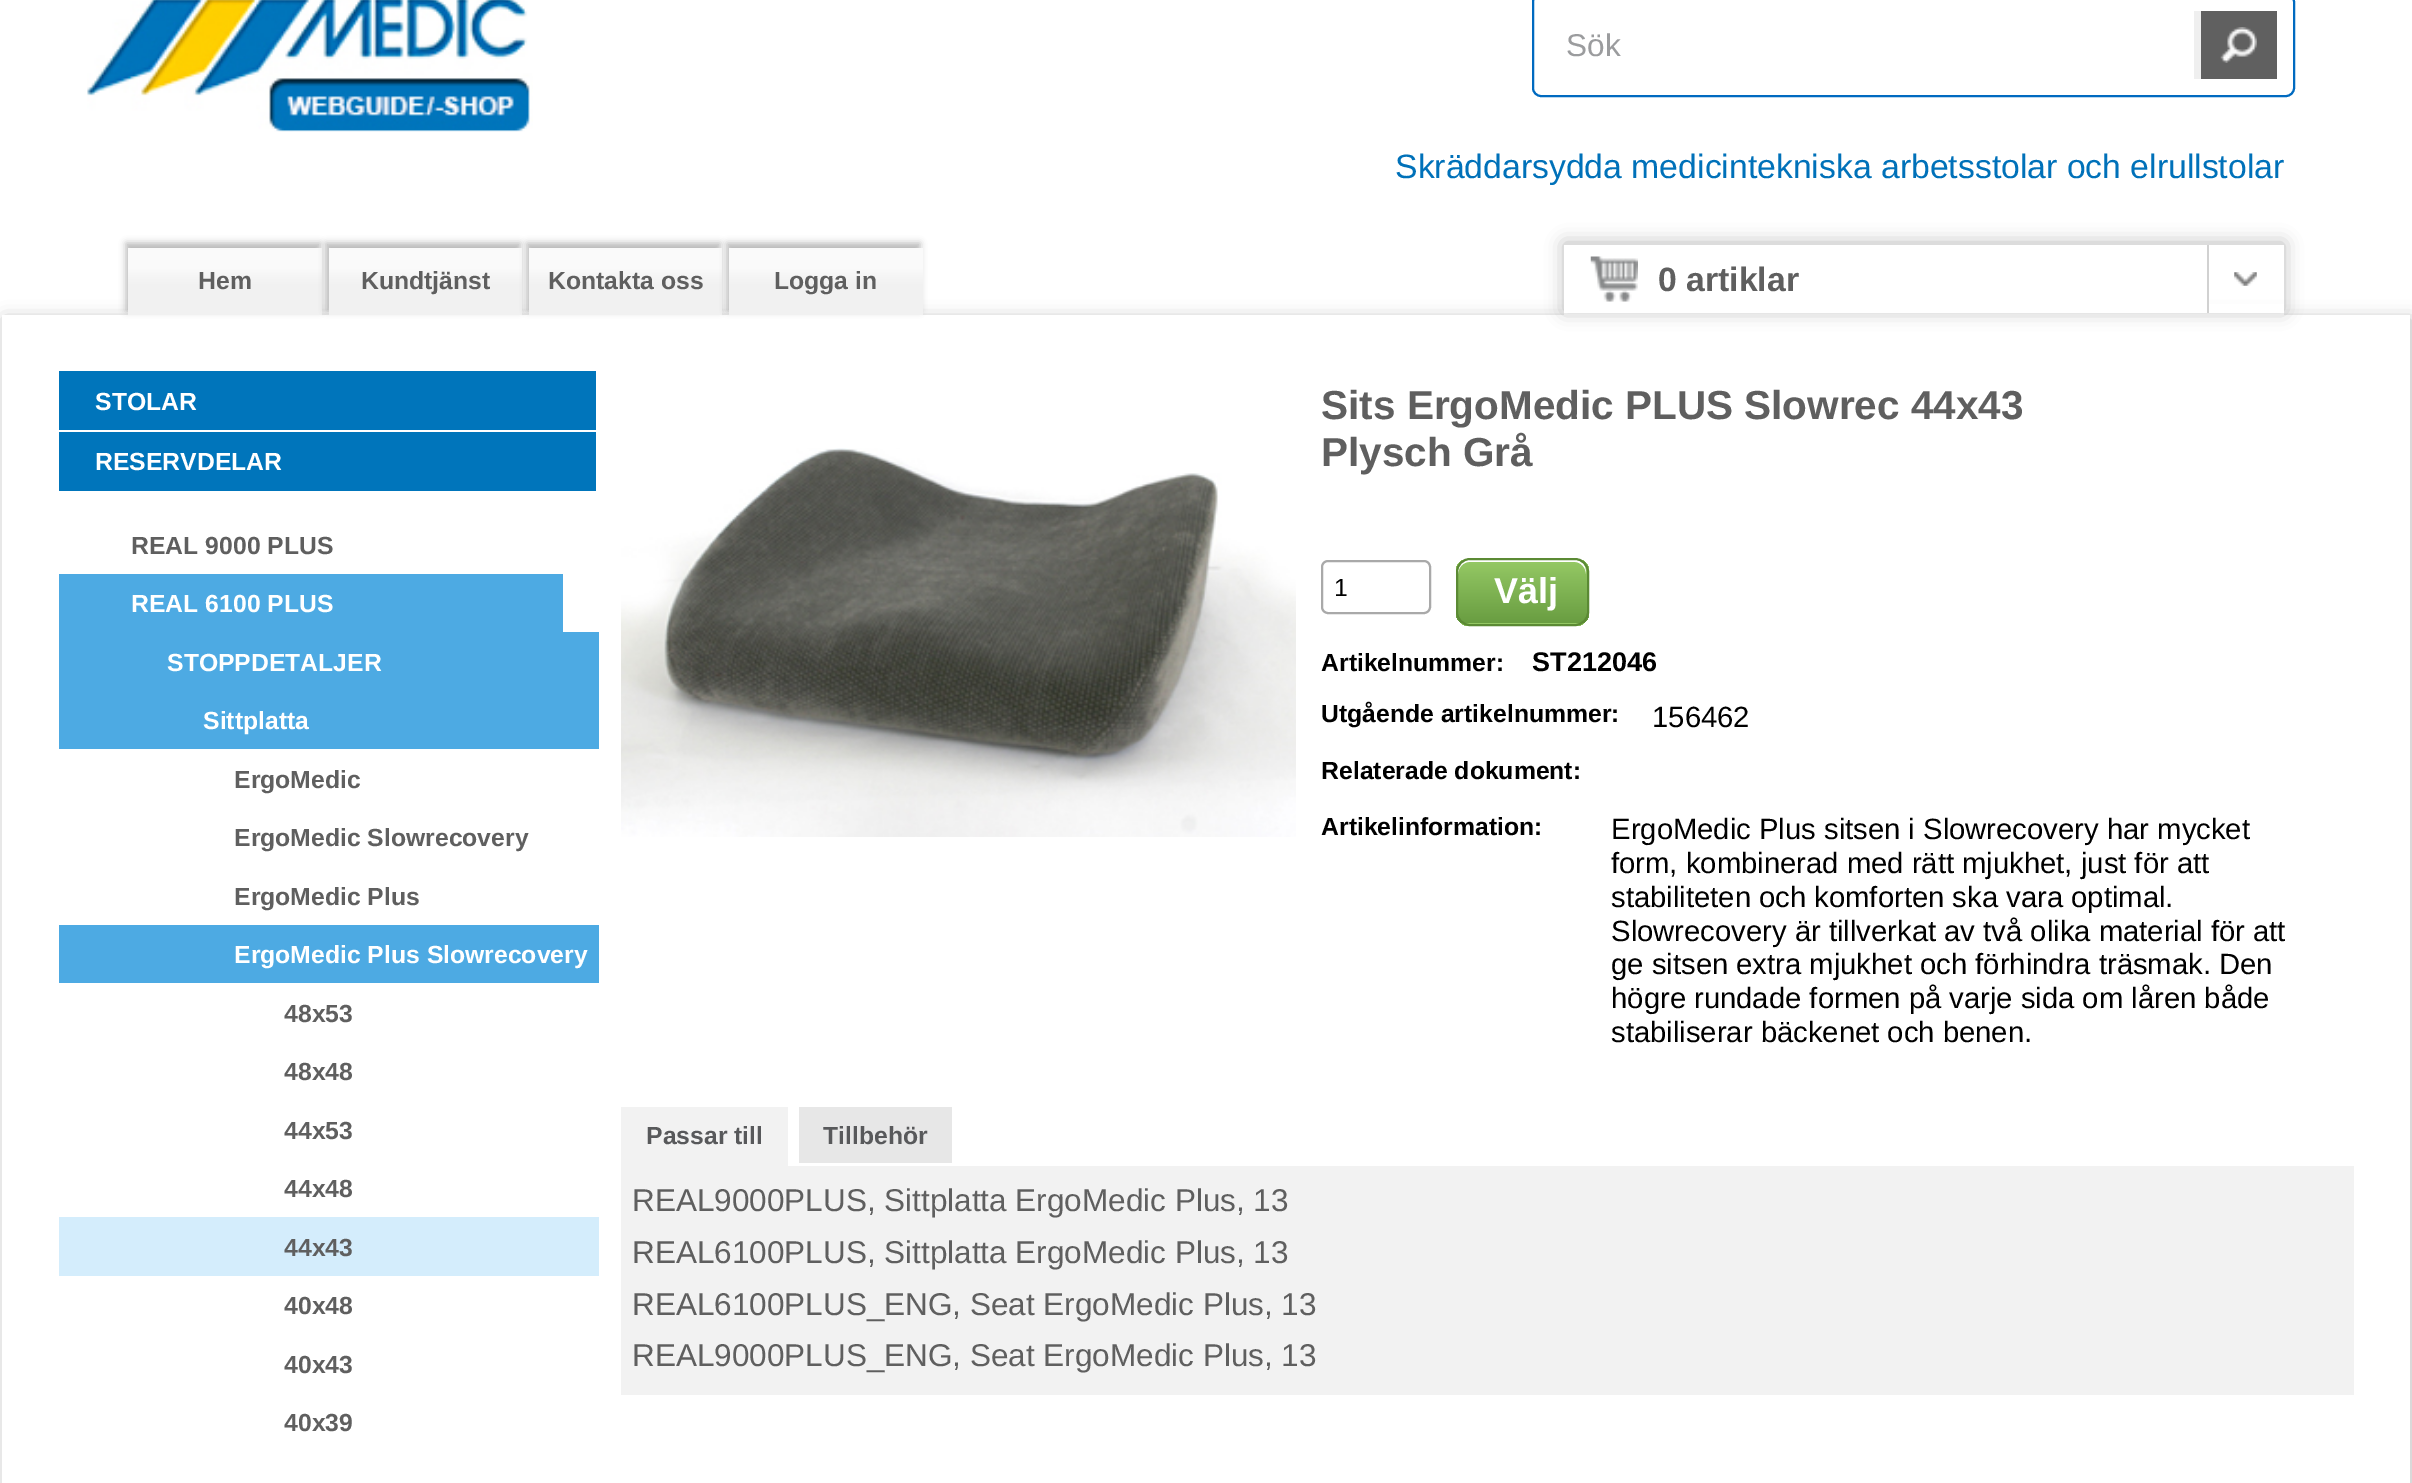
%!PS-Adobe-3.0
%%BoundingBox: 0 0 2412 1483
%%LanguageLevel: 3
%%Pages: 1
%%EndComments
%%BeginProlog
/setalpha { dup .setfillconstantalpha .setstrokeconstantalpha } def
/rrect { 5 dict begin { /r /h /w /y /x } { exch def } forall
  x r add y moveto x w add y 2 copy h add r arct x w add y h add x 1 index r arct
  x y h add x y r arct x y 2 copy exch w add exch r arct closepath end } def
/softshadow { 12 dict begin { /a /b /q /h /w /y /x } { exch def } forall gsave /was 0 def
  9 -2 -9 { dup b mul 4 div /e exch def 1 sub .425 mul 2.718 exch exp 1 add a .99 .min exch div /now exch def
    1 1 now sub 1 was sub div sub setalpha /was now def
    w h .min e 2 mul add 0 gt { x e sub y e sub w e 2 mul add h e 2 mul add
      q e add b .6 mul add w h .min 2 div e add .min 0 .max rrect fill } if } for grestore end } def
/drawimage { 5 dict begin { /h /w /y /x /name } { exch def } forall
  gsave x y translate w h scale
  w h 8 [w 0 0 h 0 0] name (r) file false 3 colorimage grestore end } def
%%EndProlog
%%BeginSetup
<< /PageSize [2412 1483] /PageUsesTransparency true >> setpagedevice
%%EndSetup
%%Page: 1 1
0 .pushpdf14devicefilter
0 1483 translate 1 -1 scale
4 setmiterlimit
1 setgray
0 0 2412 1483 rectfill
(images/1.raw) 87 0 446 132 drawimage
0 0.416 0.753 setrgbcolor
2 setlinewidth
1533 -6 761 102 8 rrect stroke
0.937 setgray
2194 11 7 68 rectfill
0.376 setgray
2201 11 76 68 rectfill
(images/2.raw) 2220 27 37 36 drawimage
0.596 setgray
5 320 2407 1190 0 9 0.75 softshadow
1 setgray
2 315 2408 1168 rectfill
0.627 setgray
126 243 194 68 0 3.5 0.75 softshadow
gsave newpath 128 248 moveto 322 248 lineto 322 315 lineto 128 315 lineto closepath clip newpath
<< /ShadingType 2 /ColorSpace /DeviceRGB /Coords [225 315 225 248] /Extend [true true] /Function << /FunctionType 3 /Domain [0 1] /Functions [<< /FunctionType 2 /Domain [0 1] /C0 [0.945 0.945 0.945] /C1 [0.945 0.945 0.945] /N 1 >> << /FunctionType 2 /Domain [0 1] /C0 [0.945 0.945 0.945] /C1 [0.98 0.98 0.98] /N 1 >> << /FunctionType 2 /Domain [0 1] /C0 [0.98 0.98 0.98] /C1 [0.98 0.98 0.98] /N 1 >>] /Bounds [0.45 0.69] /Encode [0 1 0 1 0 1] >> >> shfill grestore
326 243 194 68 0 3.5 0.75 softshadow
gsave newpath 329 248 moveto 522 248 lineto 522 315 lineto 329 315 lineto closepath clip newpath
<< /ShadingType 2 /ColorSpace /DeviceRGB /Coords [425 315 425 248] /Extend [true true] /Function << /FunctionType 3 /Domain [0 1] /Functions [<< /FunctionType 2 /Domain [0 1] /C0 [0.945 0.945 0.945] /C1 [0.945 0.945 0.945] /N 1 >> << /FunctionType 2 /Domain [0 1] /C0 [0.945 0.945 0.945] /C1 [0.98 0.98 0.98] /N 1 >> << /FunctionType 2 /Domain [0 1] /C0 [0.98 0.98 0.98] /C1 [0.98 0.98 0.98] /N 1 >>] /Bounds [0.45 0.69] /Encode [0 1 0 1 0 1] >> >> shfill grestore
527 243 193 68 0 3.5 0.75 softshadow
gsave newpath 529 248 moveto 722 248 lineto 722 315 lineto 529 315 lineto closepath clip newpath
<< /ShadingType 2 /ColorSpace /DeviceRGB /Coords [626 315 626 248] /Extend [true true] /Function << /FunctionType 3 /Domain [0 1] /Functions [<< /FunctionType 2 /Domain [0 1] /C0 [0.945 0.945 0.945] /C1 [0.945 0.945 0.945] /N 1 >> << /FunctionType 2 /Domain [0 1] /C0 [0.945 0.945 0.945] /C1 [0.98 0.98 0.98] /N 1 >> << /FunctionType 2 /Domain [0 1] /C0 [0.98 0.98 0.98] /C1 [0.98 0.98 0.98] /N 1 >>] /Bounds [0.45 0.69] /Encode [0 1 0 1 0 1] >> >> shfill grestore
727 243 193 68 0 3.5 0.75 softshadow
gsave newpath 729 248 moveto 923 248 lineto 923 315 lineto 729 315 lineto closepath clip newpath
<< /ShadingType 2 /ColorSpace /DeviceRGB /Coords [826 315 826 248] /Extend [true true] /Function << /FunctionType 3 /Domain [0 1] /Functions [<< /FunctionType 2 /Domain [0 1] /C0 [0.945 0.945 0.945] /C1 [0.945 0.945 0.945] /N 1 >> << /FunctionType 2 /Domain [0 1] /C0 [0.945 0.945 0.945] /C1 [0.98 0.98 0.98] /N 1 >> << /FunctionType 2 /Domain [0 1] /C0 [0.98 0.98 0.98] /C1 [0.98 0.98 0.98] /N 1 >>] /Bounds [0.45 0.69] /Encode [0 1 0 1 0 1] >> >> shfill grestore
1 setgray
1564 304 720 11 rectfill
gsave
newpath 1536 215 moveto 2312 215 lineto 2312 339 lineto 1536 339 lineto closepath 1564 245 moveto 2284 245 lineto 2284 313 lineto 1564 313 lineto closepath eoclip newpath
0.627 setgray
1564 243 720 68 0 9 0.75 softshadow
grestore
1564 245 643 68 rectfill
(images/3.raw) 1590 256 48 46 drawimage
(images/4.raw) 2234 272 23 14 drawimage
0.82 setgray
2207 245 2 68 rectfill
0 0.459 0.733 setrgbcolor
59 371 537 59 rectfill
59 432 537 59 rectfill
0.302 0.667 0.89 setrgbcolor
59 574 504 58 rectfill
59 632 540 117 rectfill
59 925 540 58 rectfill
0.831 0.929 0.988 setrgbcolor
59 1217 540 59 rectfill
(images/5.raw) 621 448 675 389 drawimage
0.663 setgray
1322 561 108 52 6 rrect stroke
gsave
1456 558 133 68 14 rrect clip newpath
gsave newpath 1456 560 moveto 1589 560 lineto 1589 623 lineto 1456 623 lineto closepath clip newpath
<< /ShadingType 2 /ColorSpace /DeviceRGB /Coords [1458 560 1458 623] /Extend [true true] /Function << /FunctionType 3 /Domain [0 1] /Functions [<< /FunctionType 2 /Domain [0 1] /C0 [0.576 0.78 0.388] /C1 [0.576 0.78 0.388] /N 1 >> << /FunctionType 2 /Domain [0 1] /C0 [0.576 0.78 0.388] /C1 [0.412 0.616 0.255] /N 1 >>] /Bounds [0.05] /Encode [0 1 0 1] >> >> shfill grestore
gsave newpath 1456 623 moveto 1589 623 lineto 1589 626 lineto 1456 626 lineto closepath clip newpath
<< /ShadingType 2 /ColorSpace /DeviceRGB /Coords [1458 623 1458 686] /Extend [true true] /Function << /FunctionType 3 /Domain [0 1] /Functions [<< /FunctionType 2 /Domain [0 1] /C0 [0.576 0.78 0.388] /C1 [0.576 0.78 0.388] /N 1 >> << /FunctionType 2 /Domain [0 1] /C0 [0.576 0.78 0.388] /C1 [0.412 0.616 0.255] /N 1 >>] /Bounds [0.05] /Encode [0 1 0 1] >> >> shfill grestore
grestore
1 setgray
newpath 1469 562 moveto 1575 562 lineto 1581 562 1586 568 1586 574 curveto 1586 556 1572 560 1557 560 curveto 1487 560 lineto 1472 560 1458 556 1458 574 curveto 1458 568 1463 562 1469 562 curveto closepath fill
0.357 0.541 0.204 setrgbcolor
1457 559 131 66 13 rrect stroke
0.949 setgray
621 1107 167 59 rectfill
0.906 setgray
799 1107 153 56 rectfill
0.949 setgray
621 1166 1733 229 rectfill
/LiberationSans-Regular [31.5 0 0 -31.5 0 0] selectfont
0.608 0.612 0.62 setrgbcolor
1566 56 moveto (Sök) show
/LiberationSans-Regular [33.75 0 0 -33.75 0 0] selectfont
0 0.443 0.725 setrgbcolor
1395 178 moveto (Skräddarsydda medicintekniska arbetsstolar och elrullstolar) show
/LiberationSans-Bold [24.75 0 0 -24.75 0 0] selectfont
0.373 setgray
198 289 moveto (Hem) show
361 289 moveto (Kundtjänst) show
548 289 moveto (Kontakta oss) show
774 289 moveto (Logga in) show
/LiberationSans-Bold [33.75 0 0 -33.75 0 0] selectfont
1658 291 moveto (0 artiklar) show
/LiberationSans-Bold [24.75 0 0 -24.75 0 0] selectfont
1 setgray
95 410 moveto (STOLAR) show
95 470 moveto (RESERVDELAR) show
0.373 setgray
131 554 moveto (REAL 9000 PLUS) show
1 setgray
131 612 moveto (REAL 6100 PLUS) show
167 671 moveto (STOPPDETALJER) show
203 729 moveto (Sittplatta) show
0.373 setgray
234 788 moveto (ErgoMedic) show
234 846 moveto (ErgoMedic Slowrecovery) show
234 905 moveto (ErgoMedic Plus) show
1 setgray
234 963 moveto (ErgoMedic Plus Slowrecovery) show
0.373 setgray
284 1022 moveto (48x53) show
284 1080 moveto (48x48) show
284 1139 moveto (44x53) show
284 1197 moveto (44x48) show
284 1256 moveto (44x43) show
284 1314 moveto (40x48) show
284 1373 moveto (40x43) show
284 1431 moveto (40x39) show
/LiberationSans-Bold [40.5 0 0 -40.5 0 0] selectfont
1321 419 moveto (Sits ErgoMedic PLUS Slowrec 44x43) show
1321 466 moveto (Plysch Grå) show
/LiberationSans-Regular [24.75 0 0 -24.75 0 0] selectfont
0 setgray
1334 596 moveto (1) show
/LiberationSans-Bold [36 0 0 -36 0 0] selectfont
1 setgray
1494 603 moveto (Välj) show
/LiberationSans-Bold [24.75 0 0 -24.75 0 0] selectfont
0 setgray
1321 671 moveto (Artikelnummer:) show
/LiberationSans-Bold [27 0 0 -27 0 0] selectfont
1532 671 moveto (ST212046) show
/LiberationSans-Bold [24.75 0 0 -24.75 0 0] selectfont
1321 722 moveto (Utgående artikelnummer:) show
/LiberationSans-Regular [29.25 0 0 -29.25 0 0] selectfont
1652 727 moveto (156462) show
/LiberationSans-Bold [24.75 0 0 -24.75 0 0] selectfont
1321 779 moveto (Relaterade dokument:) show
1321 835 moveto (Artikelinformation:) show
/LiberationSans-Regular [29.25 0 0 -29.25 0 0] selectfont
1611 839 moveto (ErgoMedic Plus sitsen i Slowrecovery har mycket) show
1611 873 moveto (form, kombinerad med rätt mjukhet, just för att) show
1611 907 moveto (stabiliteten och komforten ska vara optimal.) show
1611 941 moveto (Slowrecovery är tillverkat av två olika material för att) show
1611 974 moveto (ge sitsen extra mjukhet och förhindra träsmak. Den) show
1611 1008 moveto (högre rundade formen på varje sida om låren både) show
1611 1042 moveto (stabiliserar bäckenet och benen.) show
/LiberationSans-Bold [24.75 0 0 -24.75 0 0] selectfont
0.345 0.349 0.357 setrgbcolor
646 1144 moveto (Passar till) show
823 1144 moveto (Tillbehör) show
/LiberationSans-Regular [31.5 0 0 -31.5 0 0] selectfont
0.373 setgray
632 1211 moveto (REAL9000PLUS, Sittplatta ErgoMedic Plus, 13) show
632 1263 moveto (REAL6100PLUS, Sittplatta ErgoMedic Plus, 13) show
632 1315 moveto (REAL6100PLUS_ENG, Seat ErgoMedic Plus, 13) show
632 1366 moveto (REAL9000PLUS_ENG, Seat ErgoMedic Plus, 13) show
.poppdf14devicefilter showpage
%%EOF
